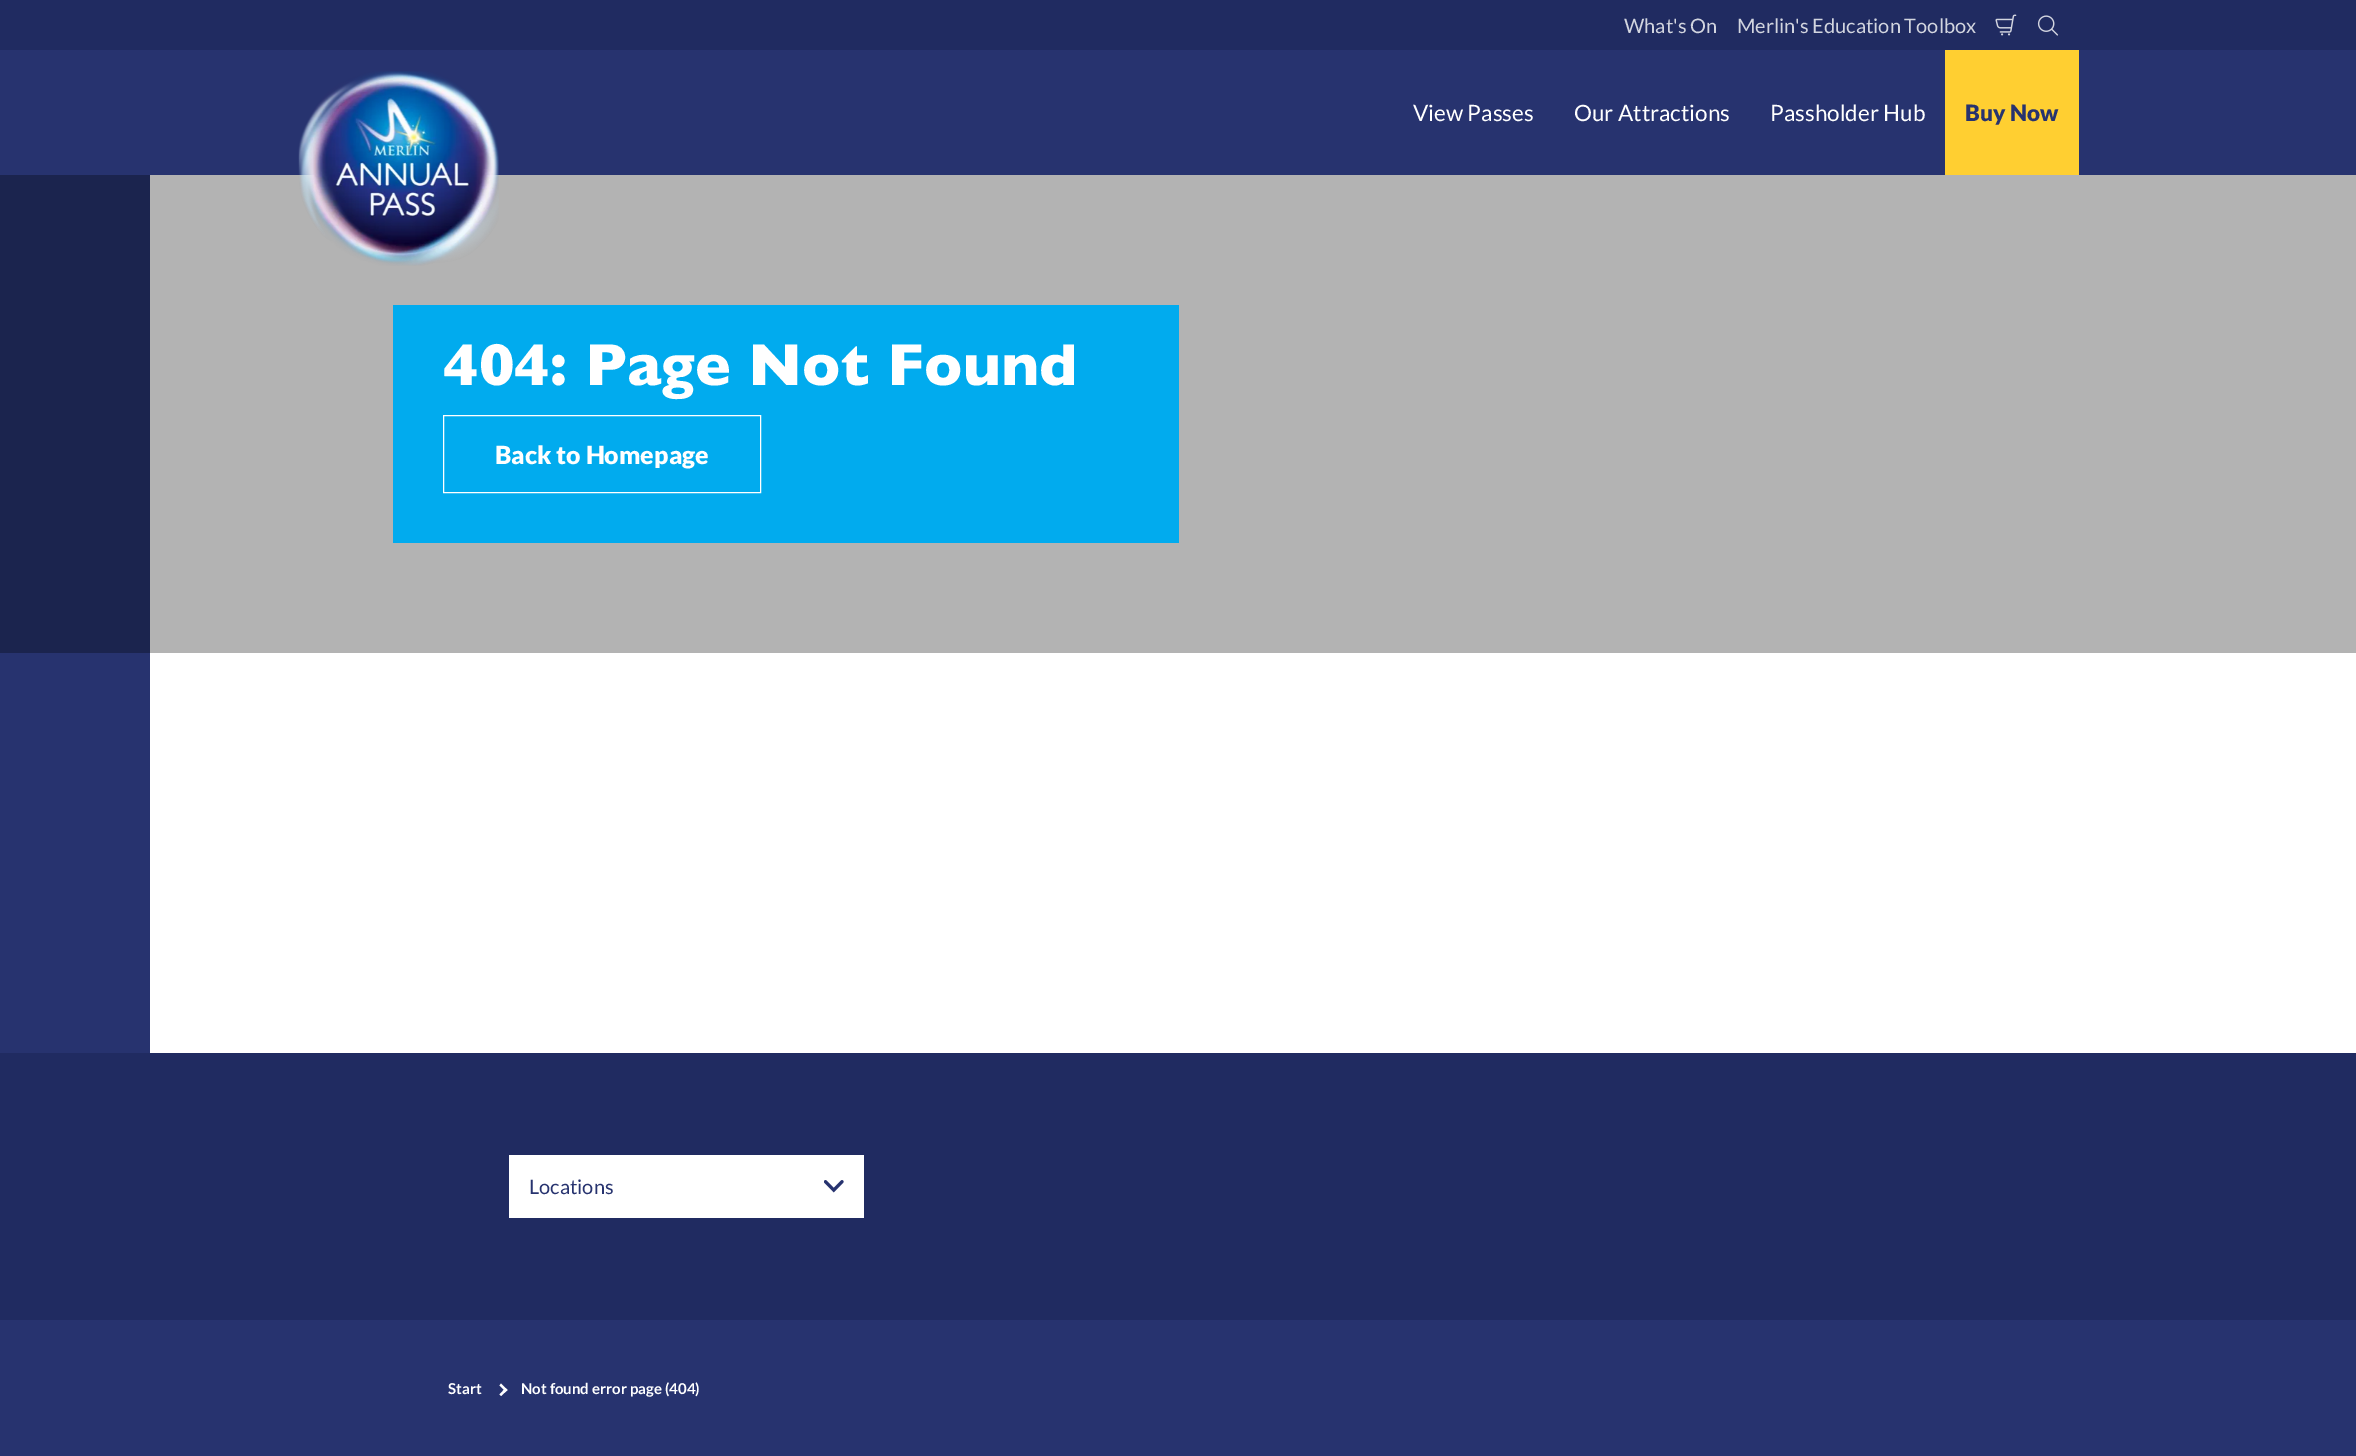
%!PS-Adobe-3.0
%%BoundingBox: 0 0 2356 1456
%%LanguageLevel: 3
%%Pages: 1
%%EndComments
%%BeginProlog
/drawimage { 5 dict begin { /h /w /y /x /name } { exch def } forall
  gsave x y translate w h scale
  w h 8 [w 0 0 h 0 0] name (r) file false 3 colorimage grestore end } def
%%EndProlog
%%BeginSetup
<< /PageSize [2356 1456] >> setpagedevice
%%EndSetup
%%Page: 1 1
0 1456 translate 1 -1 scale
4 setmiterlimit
1 setgray
0 0 2356 1456 rectfill
0.702 setgray
150 175 2206 478 rectfill
0.125 0.169 0.38 setrgbcolor
0 0 2356 50 rectfill
(images/1.raw) 1995 14 22 22 drawimage
(images/2.raw) 2037 15 22 21 drawimage
0.153 0.2 0.435 setrgbcolor
0 50 2356 125 rectfill
(images/3.raw) 298 71 201 195 drawimage
1 0.812 0.192 setrgbcolor
1945 50 134 125 rectfill
0.153 0.2 0.435 setrgbcolor
0 653 150 803 rectfill
0.106 0.141 0.306 setrgbcolor
0 175 150 478 rectfill
0.004 0.671 0.933 setrgbcolor
393 305 786 238 rectfill
1 setgray
443.5 415.5 317 77 rectstroke
0.125 0.169 0.38 setrgbcolor
0 1053 2356 267 rectfill
1 setgray
509 1155 355 63 rectfill
(images/4.raw) 824 1180 20 13 drawimage
0.153 0.2 0.435 setrgbcolor
150 1320 2206 136 rectfill
1 setgray
newpath 501 1383.5 moveto 507.5 1390 lineto 505.5 1391.5 lineto 499.5 1385.5 lineto closepath fill
newpath 505.5 1388 moveto 507.5 1390 lineto 501 1396 lineto 499.5 1394.5 lineto closepath fill
/Lato-Regular [20 0 0 -20 0 0] selectfont
0.824 0.835 0.875 setrgbcolor
1624 33 moveto (What's On) show
1737 33 moveto (Merlin's Education Toolbox) show
/Lato-Regular [22.5 0 0 -22.5 0 0] selectfont
1 setgray
1413 121 moveto (View Passes) show
1574 121 moveto (Our Attractions) show
1770 121 moveto (Passholder Hub) show
/Lato-Black [22.5 0 0 -22.5 0 0] selectfont
0.153 0.2 0.435 setrgbcolor
1965 121 moveto (Buy Now) show
/GillSans-Bold [60 0 0 -60 0 0] selectfont
1 setgray
443 385 moveto (404: Page Not Found) show
/Lato-Black [25 0 0 -25 0 0] selectfont
495 464 moveto (Back to Homepage) show
/Lato-Regular [20 0 0 -20 0 0] selectfont
0.153 0.2 0.435 setrgbcolor
529 1194 moveto (Locations) show
/Lato-Bold [15 0 0 -15 0 0] selectfont
1 setgray
448 1394 moveto (Start) show
521 1394 moveto (Not found error page \(404\)) show
showpage
%%EOF
